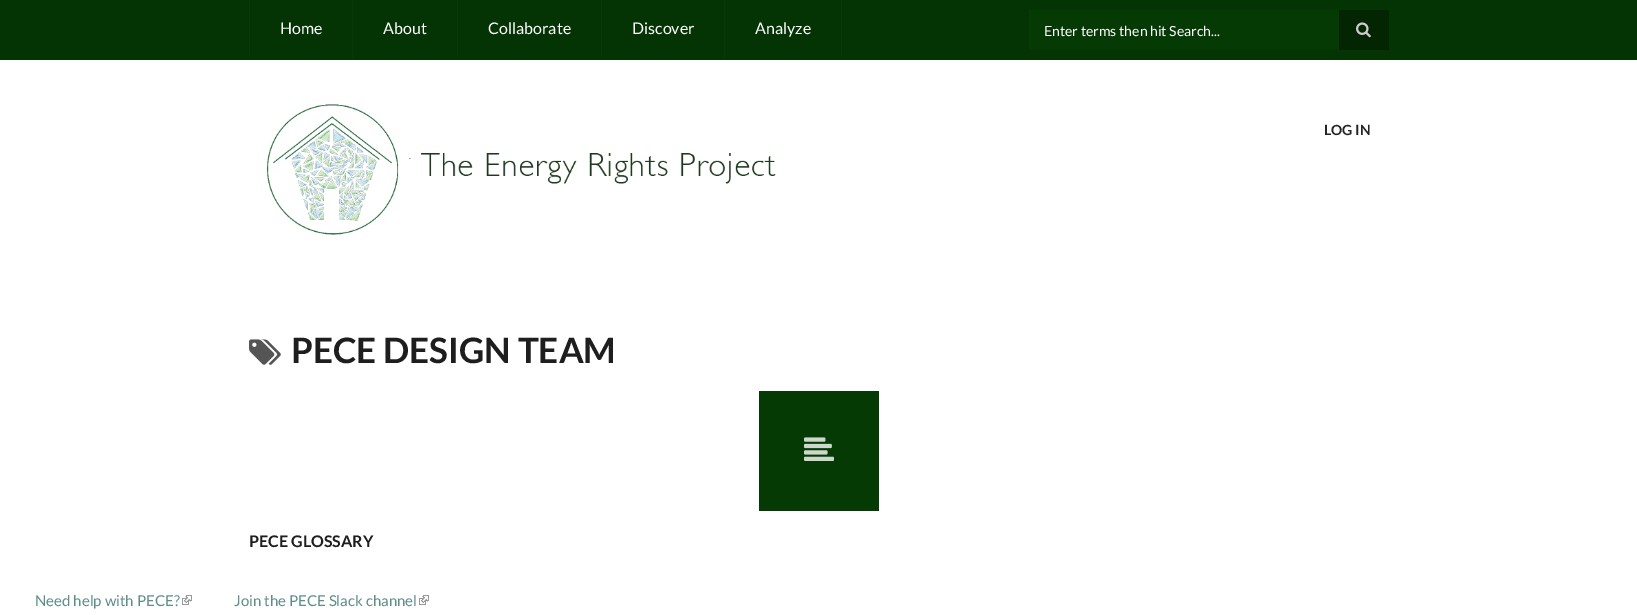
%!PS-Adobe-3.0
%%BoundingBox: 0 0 1637 615
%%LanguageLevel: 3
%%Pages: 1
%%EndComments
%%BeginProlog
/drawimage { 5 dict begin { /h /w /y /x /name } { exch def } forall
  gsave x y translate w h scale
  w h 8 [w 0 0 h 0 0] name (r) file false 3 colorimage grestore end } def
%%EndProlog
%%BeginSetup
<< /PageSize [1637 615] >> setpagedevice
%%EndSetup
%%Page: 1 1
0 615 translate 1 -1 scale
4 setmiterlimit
1 setgray
0 0 1637 615 rectfill
0.02 0.204 0.016 setrgbcolor
0 0 1637 60 rectfill
0.02 0.227 0.016 setrgbcolor
newpath 249 60 moveto 249 0 lineto 250 0 lineto 250 56 lineto closepath fill
newpath 352 60 moveto 352 0 lineto 353 0 lineto 353 56 lineto closepath fill
newpath 457 60 moveto 457 0 lineto 458 0 lineto 458 56 lineto closepath fill
newpath 601 60 moveto 601 0 lineto 602 0 lineto 602 56 lineto closepath fill
newpath 842 0 moveto 842 60 lineto 841 56 lineto 841 0 lineto closepath fill
newpath 724 60 moveto 724 0 lineto 725 0 lineto 725 56 lineto closepath fill
1029 10 310 40 rectfill
0.012 0.145 0.008 setrgbcolor
1339 10 50 40 rectfill
(images/1.raw) 1356 22 15 16 drawimage
(images/2.raw) 267 104 509 131 drawimage
(images/3.raw) 249 339 32 26 drawimage
0.02 0.227 0.016 setrgbcolor
759 391 120 120 rectfill
(images/4.raw) 804 437 30 24 drawimage
(images/5.raw) 182 595 10 10 drawimage
(images/5.raw) 419 595 10 10 drawimage
/Lato-Regular [16 0 0 -16 0 0] selectfont
1 setgray
280 34 moveto (Home) show
383 34 moveto (About) show
488 34 moveto (Collaborate) show
632 34 moveto (Discover) show
755 34 moveto (Analyze) show
/Lato-Regular [14 0 0 -14 0 0] selectfont
1044 36 moveto (Enter terms then hit Search...) show
/Lato-Bold [14 0 0 -14 0 0] selectfont
0.145 setgray
1324 135 moveto (LOG IN) show
/Lato-Bold [35 0 0 -35 0 0] selectfont
0.118 setgray
291 363 moveto (PECE DESIGN TEAM) show
/Lato-Bold [16 0 0 -16 0 0] selectfont
249 547 moveto (PECE GLOSSARY) show
/Lato-Regular [15 0 0 -15 0 0] selectfont
0.373 0.557 0.541 setrgbcolor
35 606 moveto (Need help with PECE?) show
234 606 moveto (Join the PECE Slack channel) show
showpage
%%EOF
